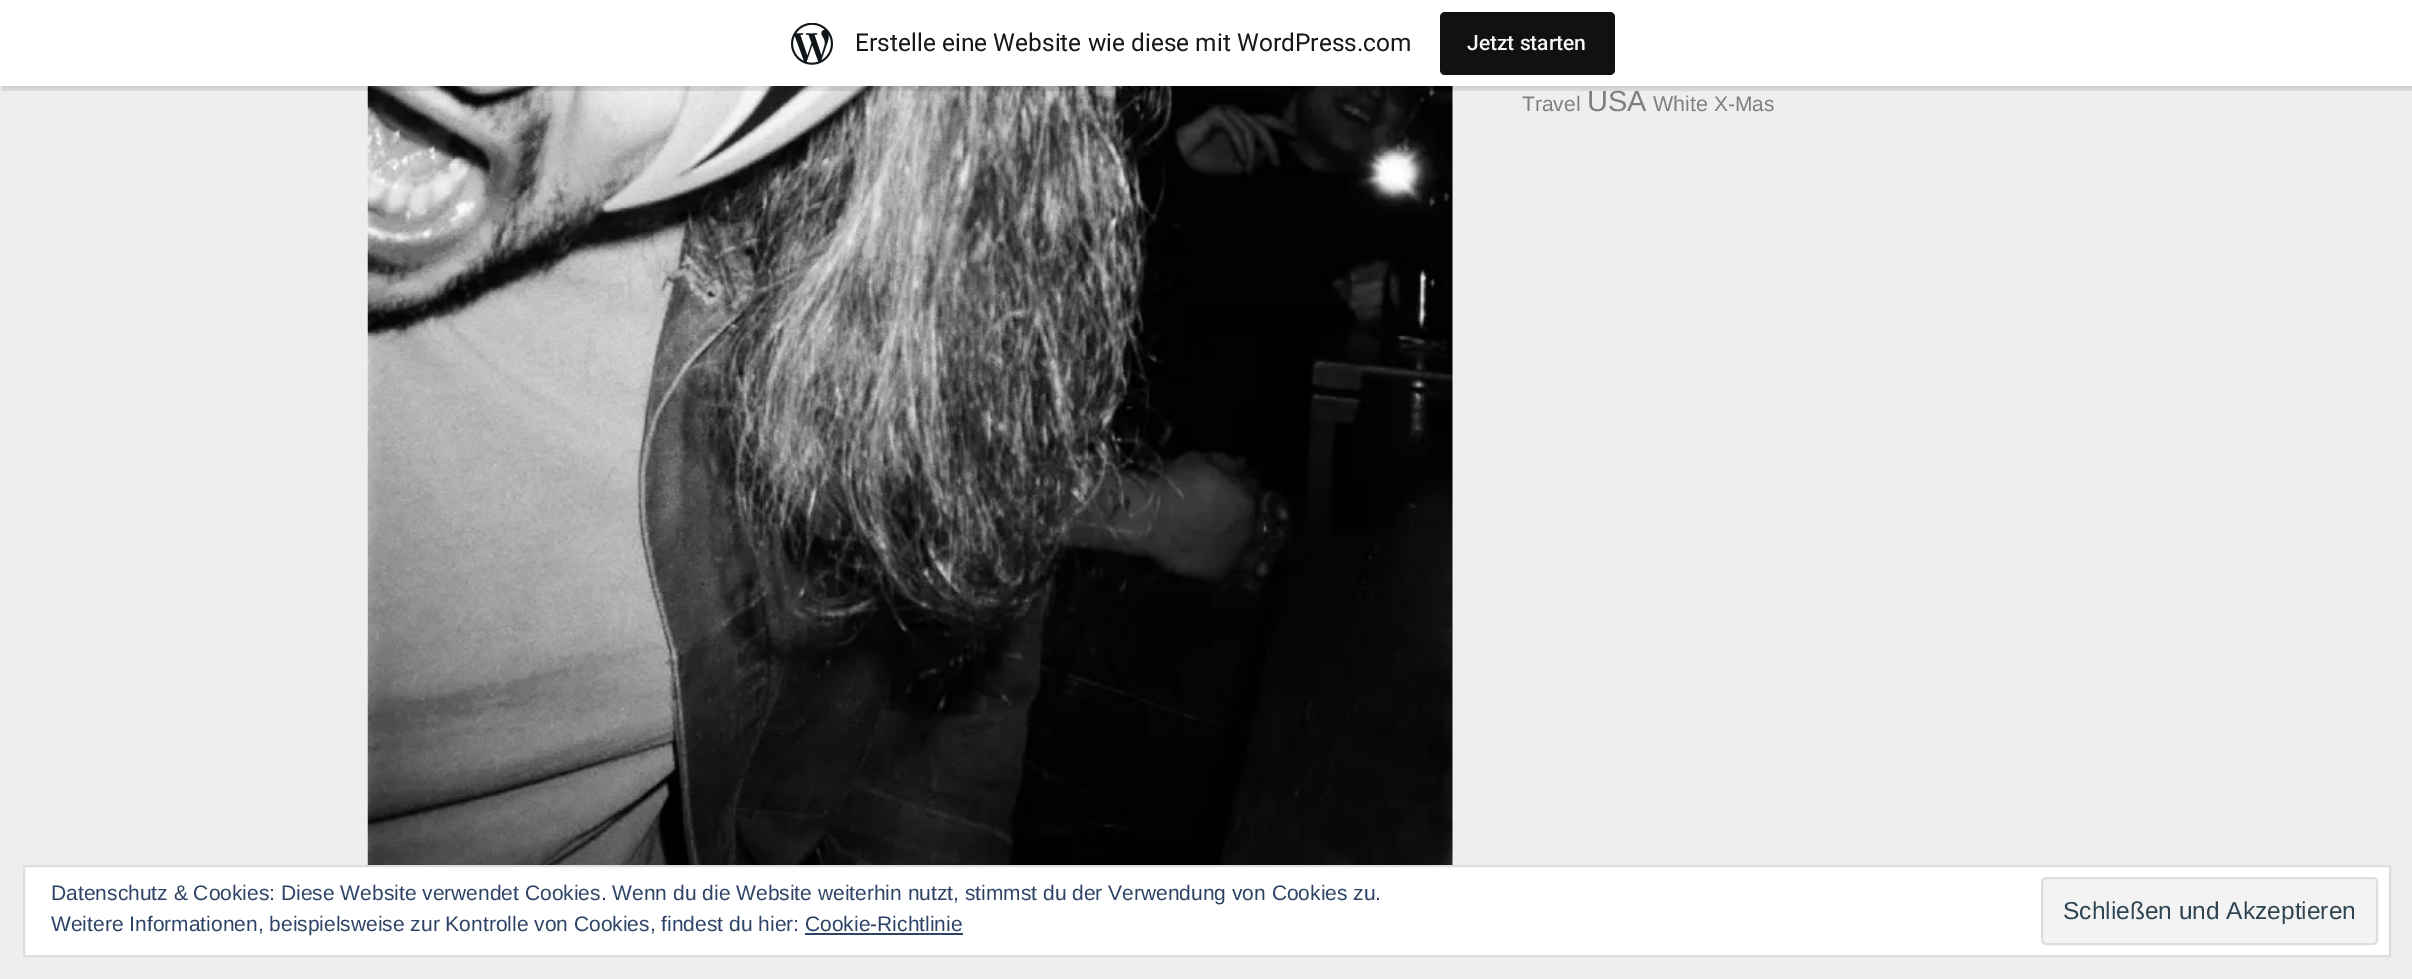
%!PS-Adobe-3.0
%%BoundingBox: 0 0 2412 979
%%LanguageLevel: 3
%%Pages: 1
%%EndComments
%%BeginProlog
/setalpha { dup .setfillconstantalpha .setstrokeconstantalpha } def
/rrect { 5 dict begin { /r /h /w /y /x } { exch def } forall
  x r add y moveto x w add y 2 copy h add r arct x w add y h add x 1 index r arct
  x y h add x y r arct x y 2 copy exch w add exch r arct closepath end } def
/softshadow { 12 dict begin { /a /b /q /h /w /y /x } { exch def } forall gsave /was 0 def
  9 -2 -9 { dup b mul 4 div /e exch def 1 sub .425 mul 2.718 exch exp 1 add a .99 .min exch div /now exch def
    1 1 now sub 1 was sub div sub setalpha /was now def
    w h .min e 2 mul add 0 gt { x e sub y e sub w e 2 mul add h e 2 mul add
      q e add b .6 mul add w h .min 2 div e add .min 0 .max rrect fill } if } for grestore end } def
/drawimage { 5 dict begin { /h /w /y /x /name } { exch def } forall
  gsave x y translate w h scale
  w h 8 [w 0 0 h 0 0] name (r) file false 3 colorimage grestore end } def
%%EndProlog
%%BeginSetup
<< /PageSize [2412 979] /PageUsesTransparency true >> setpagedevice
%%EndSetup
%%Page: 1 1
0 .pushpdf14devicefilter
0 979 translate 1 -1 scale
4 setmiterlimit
0.929 0.933 0.941 setrgbcolor
0 0 2412 979 rectfill
(images/2.raw) 367 86 1086 779 drawimage
0 setgray
0 2 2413 86 0 2 0.05 softshadow
0.08 setalpha
newpath 2 86 moveto 2 91 lineto 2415 91 lineto 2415 5 lineto 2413 5 lineto 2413 86 lineto closepath fill
1 setalpha
1 setgray
0 0 2412 86 rectfill
(images/1.raw) 791 23 42 42 drawimage
0.067 setgray
1440 12 175 63 5 rrect fill
1 setgray
newpath 24 866 moveto 2390 866 lineto 2390 956 lineto 24 956 lineto closepath gsave fill grestore
0.871 setgray
2 setlinewidth
stroke
0.953 setgray
2042 878 335 66 4 rrect gsave fill grestore
0.871 setgray
stroke
0.18 0.267 0.404 setrgbcolor
805 933 158 2 rectfill
/Roboto-Regular [24.5 0 0 -24.5 0 0] selectfont
0.09 setgray
855 51 moveto (Erstelle eine Website wie diese mit WordPress.com) show
/Roboto-Medium [21 0 0 -21 0 0] selectfont
0.965 0.969 0.969 setrgbcolor
1467 50 moveto (Jetzt starten) show
/LiberationSans-Regular [21 0 0 -21 0 0] selectfont
0.498 setgray
1522 111 moveto (Travel) show
/LiberationSans-Regular [29 0 0 -29 0 0] selectfont
1587 111 moveto (USA) show
/LiberationSans-Regular [21.5 0 0 -21.5 0 0] selectfont
1653 111 moveto (White) show
/LiberationSans-Regular [21 0 0 -21 0 0] selectfont
1714 111 moveto (X-Mas) show
0.18 0.267 0.404 setrgbcolor
51 900 moveto (Datenschutz & Cookies: Diese Website verwendet Cookies. Wenn du die Website weiterhin nutzt, stimmst du der Verwendung von Cookies zu.) show
51 931 moveto (Weitere Informationen, beispielsweise zur Kontrolle von Cookies, findest du hier: Cookie-Richtlinie) show
/LiberationSans-Regular [24.5 0 0 -24.5 0 0] selectfont
0.18 0.267 0.325 setrgbcolor
2063 919 moveto (Schließen und Akzeptieren) show
.poppdf14devicefilter showpage
%%EOF
